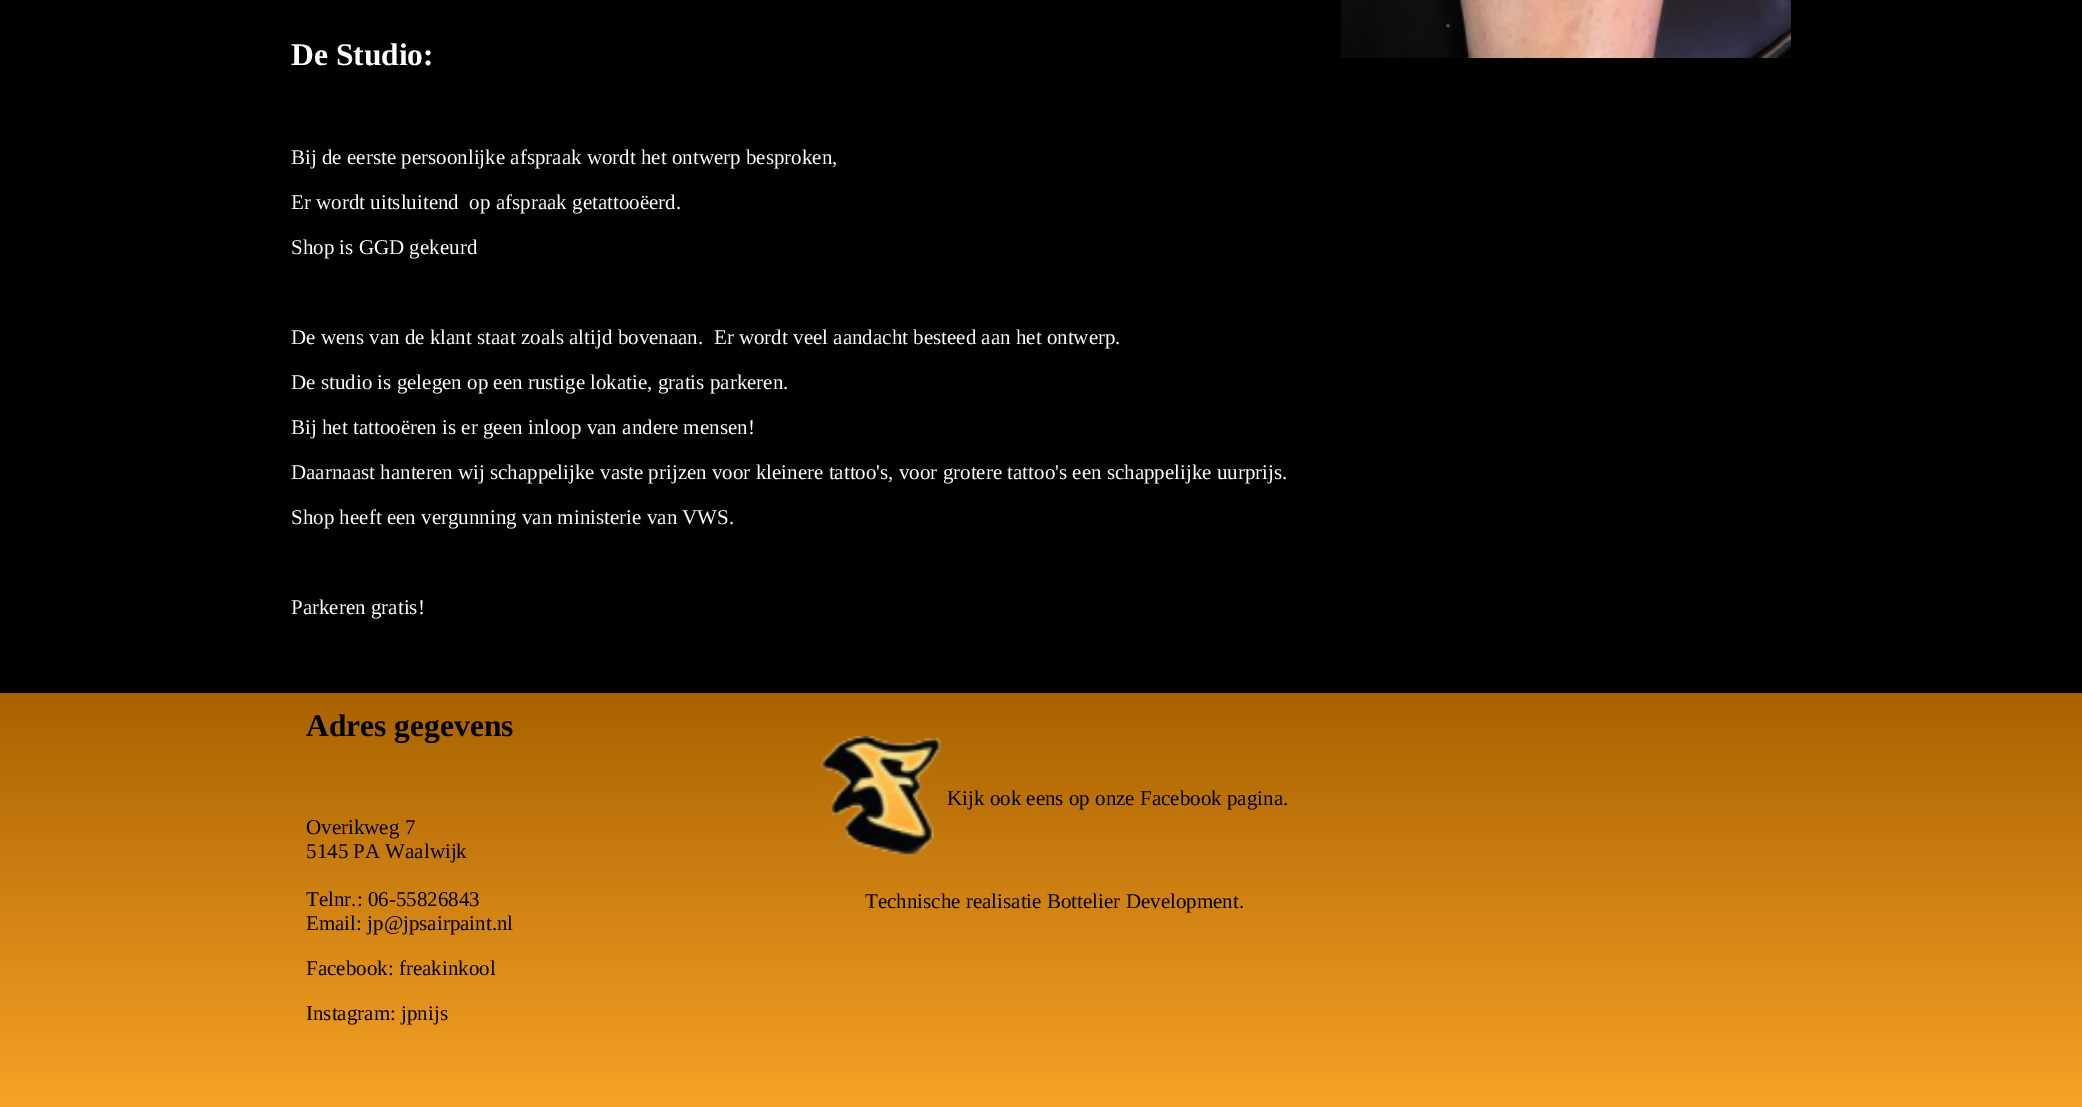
%!PS-Adobe-3.0
%%BoundingBox: 0 0 2082 1107
%%LanguageLevel: 3
%%Pages: 1
%%EndComments
%%BeginProlog
/drawimage { 5 dict begin { /h /w /y /x /name } { exch def } forall
  gsave x y translate w h scale
  w h 8 [w 0 0 h 0 0] name (r) file false 3 colorimage grestore end } def
%%EndProlog
%%BeginSetup
<< /PageSize [2082 1107] >> setpagedevice
%%EndSetup
%%Page: 1 1
0 1107 translate 1 -1 scale
4 setmiterlimit
0 setgray
0 0 2082 1107 rectfill
(images/1.raw) 1341 0 450 58 drawimage
gsave newpath 0 693 moveto 2082 693 lineto 2082 1107 lineto 0 1107 lineto closepath clip newpath
<< /ShadingType 2 /ColorSpace /DeviceRGB /Coords [1041 693 1041 1107] /Extend [true true] /Function << /FunctionType 2 /Domain [0 1] /C0 [0.659 0.384 0] /C1 [0.973 0.635 0.153] /N 1 >> >> shfill grestore
(images/2.raw) 820 736 121 120 drawimage
/LiberationSerif-Bold [31.5 0 0 -31.5 0 0] selectfont
1 setgray
291 65 moveto (De Studio:) show
/LiberationSerif-Regular [21 0 0 -21 0 0] selectfont
291 164 moveto (Bij de eerste persoonlijke afspraak wordt het ontwerp besproken,) show
291 209 moveto (Er wordt uitsluitend  op afspraak getattooëerd.) show
291 254 moveto (Shop is GGD gekeurd) show
291 344 moveto (De wens van de klant staat zoals altijd bovenaan.  Er wordt veel aandacht besteed aan het ontwerp.) show
291 389 moveto (De studio is gelegen op een rustige lokatie, gratis parkeren.) show
291 434 moveto (Bij het tattooëren is er geen inloop van andere mensen!) show
291 479 moveto (Daarnaast hanteren wij schappelijke vaste prijzen voor kleinere tattoo's, voor grotere tattoo's een schappelijke uurprijs.) show
291 524 moveto (Shop heeft een vergunning van ministerie van VWS.) show
291 614 moveto (Parkeren gratis!) show
/LiberationSerif-Bold [31.5 0 0 -31.5 0 0] selectfont
0 setgray
306 736 moveto (Adres gegevens) show
/LiberationSerif-Regular [21 0 0 -21 0 0] selectfont
306 834 moveto (Overikweg 7) show
306 858 moveto (5145 PA Waalwijk) show
306 906 moveto (Telnr.: 06-55826843) show
306 930 moveto (Email: jp@jpsairpaint.nl) show
306 975 moveto (Facebook: freakinkool) show
306 1020 moveto (Instagram: jpnijs) show
947 805 moveto (Kijk ook eens op onze Facebook pagina.) show
865 908 moveto (Technische realisatie Bottelier Development.) show
showpage
%%EOF
